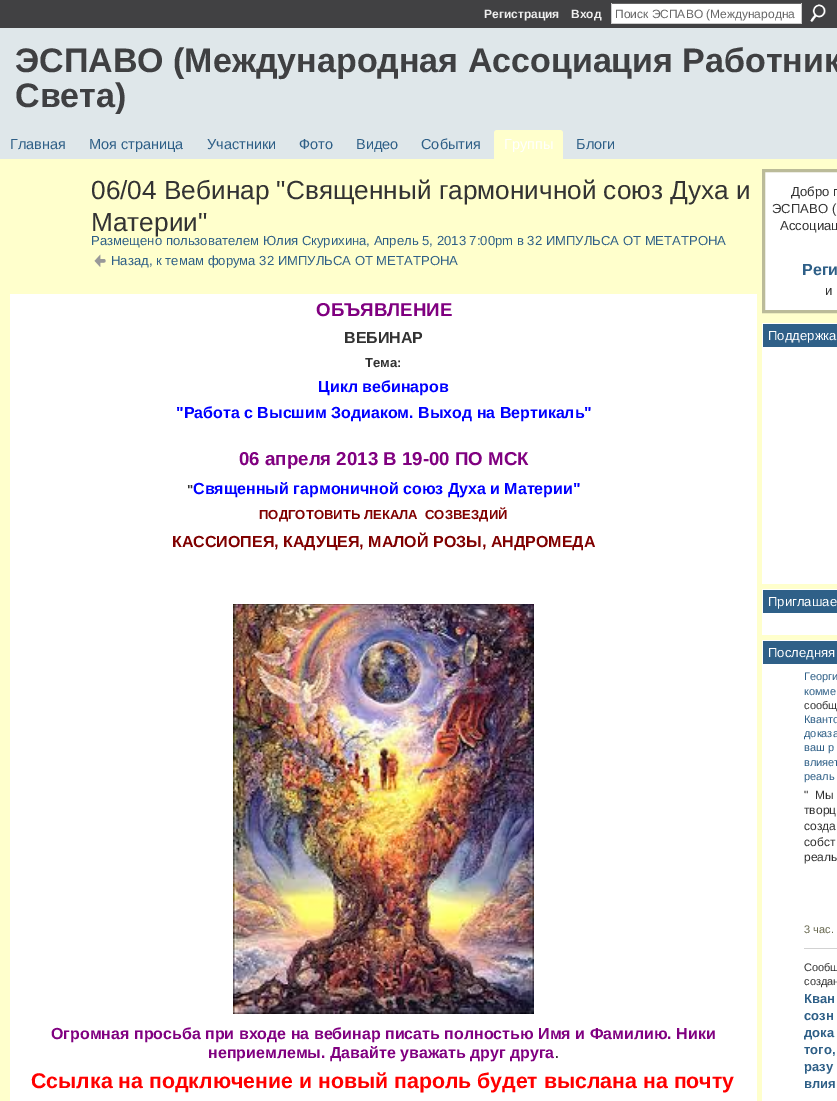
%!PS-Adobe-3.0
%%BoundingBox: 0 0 837 1101
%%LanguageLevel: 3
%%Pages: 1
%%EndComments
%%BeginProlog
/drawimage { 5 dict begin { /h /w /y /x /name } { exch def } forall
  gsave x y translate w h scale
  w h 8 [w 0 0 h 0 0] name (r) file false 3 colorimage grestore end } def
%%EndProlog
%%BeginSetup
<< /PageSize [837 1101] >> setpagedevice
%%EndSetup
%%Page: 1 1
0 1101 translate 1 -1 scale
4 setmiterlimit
0.875 0.906 0.918 setrgbcolor
0 0 837 1101 rectfill
0.255 0.255 0.263 setrgbcolor
0 0 837 28 rectfill
1 setgray
612 4 189 19 rectfill
0.4 setgray
611 3 191 1 rectfill
0.8 setgray
801 3 1 21 rectfill
611 23 191 1 rectfill
611 3 1 21 rectfill
(images/1.raw) 810 4 16 18 drawimage
1 1 0.8 setrgbcolor
newpath 497 130 moveto 560 130 lineto 561.5 130 563 131.5 563 133 curveto 563 159 lineto 494 159 lineto 494 133 lineto 494 131.5 495.5 130 497 130 curveto closepath fill
0 159 837 942 rectfill
(images/2.raw) 94 254 12 13 drawimage
1 setgray
10 294 747 807 rectfill
(images/3.raw) 233 604 301 410 drawimage
newpath 763.5 170.5 moveto 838.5 170.5 lineto 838.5 311.5 lineto 763.5 311.5 lineto closepath gsave fill grestore
0.733 0.733 0.6 setrgbcolor
3 setlinewidth
stroke
0.184 0.376 0.533 setrgbcolor
763 324 74 23 rectfill
1 setgray
762 323 75 1 rectfill
762 323 1 24 rectfill
762 347 75 237 rectfill
0.184 0.376 0.533 setrgbcolor
763 590 74 23 rectfill
1 setgray
762 589 75 1 rectfill
762 589 1 24 rectfill
762 613 75 22 rectfill
0.184 0.376 0.533 setrgbcolor
763 641 74 23 rectfill
1 setgray
762 640 75 1 rectfill
762 640 1 24 rectfill
762 664 75 437 rectfill
0.824 setgray
804 948 33 1 rectfill
/LiberationSans-Bold [12 0 0 -12 0 0] selectfont
0.933 setgray
484 18 moveto (Регистрация) show
571 18 moveto (Вход) show
/LiberationSans-Regular [12 0 0 -12 0 0] selectfont
0.4 setgray
615 18 moveto (Поиск ЭСПАВО \(Международна) show
/LiberationSans-Bold [34 0 0 -34 0 0] selectfont
0.247 0.251 0.259 setrgbcolor
15 72 moveto (ЭСПАВО \(Международная Ассоциация Работник) show
gsave
0 28 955 86 rectclip
15 107 moveto (Света\)) show
grestore
/LiberationSans-Regular [14.5 0 0 -14.5 0 0] selectfont
0.18 0.373 0.529 setrgbcolor
10 149 moveto (Главная) show
89 149 moveto (Моя страница) show
207 149 moveto (Участники) show
299 149 moveto (Фото) show
356 149 moveto (Видео) show
421 149 moveto (События) show
1 setgray
504 149 moveto (Группы) show
0.18 0.373 0.529 setrgbcolor
576 149 moveto (Блоги) show
/LiberationSans-Regular [26.2 0 0 -26.2 0 0] selectfont
0.2 setgray
91 199 moveto (06/04 Вебинар "Священный гармоничной союз Духа и) show
91 231 moveto (Материи") show
/LiberationSans-Regular [13.1 0 0 -13.1 0 0] selectfont
0.18 0.373 0.529 setrgbcolor
91 245 moveto (Размещено пользователем Юлия Скурихина, Апрель 5, 2013 7:00pm в 32 ИМПУЛЬСА ОТ МЕТАТРОНА) show
111 265 moveto (Назад, к темам форума 32 ИМПУЛЬСА ОТ МЕТАТРОНА) show
/LiberationSans-Bold [18.7 0 0 -18.7 0 0] selectfont
0.502 0 0.502 setrgbcolor
316 316 moveto (ОБЪЯВЛЕНИЕ) show
/LiberationSans-Bold [16 0 0 -16 0 0] selectfont
0.2 setgray
344 343 moveto (ВЕБИНАР) show
/LiberationSans-Bold [13.1 0 0 -13.1 0 0] selectfont
365 367 moveto (Тема:) show
/LiberationSans-Bold [16 0 0 -16 0 0] selectfont
0 0 1 setrgbcolor
318 392 moveto (Цикл вебинаров) show
176 418 moveto ("Работа с Высшим Зодиаком. Выход на Вертикаль") show
/LiberationSans-Bold [18.7 0 0 -18.7 0 0] selectfont
0.502 0 0.502 setrgbcolor
239 465 moveto (06 апреля 2013 В 19-00 ПО МСК) show
/LiberationSans-Bold [13.1 0 0 -13.1 0 0] selectfont
0.2 setgray
187 494 moveto (") show
/LiberationSans-Bold [16 0 0 -16 0 0] selectfont
0 0 1 setrgbcolor
193 494 moveto (Священный гармоничной союз Духа и Материи") show
/LiberationSans-Bold [13.1 0 0 -13.1 0 0] selectfont
0.502 0 0 setrgbcolor
259 519 moveto (ПОДГОТОВИТЬ ЛЕКАЛА  СОЗВЕЗДИЙ) show
/LiberationSans-Bold [16 0 0 -16 0 0] selectfont
172 547 moveto (КАССИОПЕЯ, КАДУЦЕЯ, МАЛОЙ РОЗЫ, АНДРОМЕДА) show
0.502 0 0.502 setrgbcolor
51 1039 moveto (Огромная просьба при входе на вебинар писать полностью Имя и Фамилию. Ники) show
208 1058 moveto (неприемлемы. Давайте уважать друг друга) show
/LiberationSans-Bold [13.1 0 0 -13.1 0 0] selectfont
0.2 setgray
555 1058 moveto (.) show
/LiberationSans-Bold [21.3 0 0 -21.3 0 0] selectfont
1 0 0 setrgbcolor
31 1088 moveto (Ссылка на подключение и новый пароль будет выслана на почту) show
/LiberationSans-Regular [13.1 0 0 -13.1 0 0] selectfont
0.2 setgray
791 196 moveto (Добро п) show
772 213 moveto (ЭСПАВО \() show
780 230 moveto (Ассоциац) show
/LiberationSans-Bold [16 0 0 -16 0 0] selectfont
0.18 0.373 0.529 setrgbcolor
802 275 moveto (Реги) show
/LiberationSans-Regular [13.1 0 0 -13.1 0 0] selectfont
0.2 setgray
825 295 moveto (и) show
1 setgray
768 340 moveto (Поддержка) show
768 606 moveto (Приглашае) show
768 657 moveto (Последняя) show
/LiberationSans-Regular [11 0 0 -11 0 0] selectfont
0.18 0.373 0.529 setrgbcolor
804 680 moveto (Георги) show
804 695 moveto (комме) show
0.2 setgray
804 709 moveto (сообщ) show
0.18 0.373 0.529 setrgbcolor
804 723 moveto (Кванто) show
804 737 moveto (доказа) show
804 751 moveto (ваш р) show
804 766 moveto (влияет) show
804 780 moveto (реаль) show
/LiberationSans-Regular [12 0 0 -12 0 0] selectfont
0.2 setgray
804 799 moveto ("  Мы) show
804 814 moveto (творц) show
804 830 moveto (созда) show
804 846 moveto (собст) show
804 861 moveto (реаль) show
/LiberationSans-Regular [11 0 0 -11 0 0] selectfont
0.4 0.4 0.302 setrgbcolor
804 933 moveto (3 час.) show
0.2 setgray
804 971 moveto (Сообщ) show
804 985 moveto (создан) show
/LiberationSans-Bold [13 0 0 -13 0 0] selectfont
0.18 0.373 0.529 setrgbcolor
804 1003 moveto (Кван) show
804 1020 moveto (созн) show
804 1037 moveto (дока) show
804 1054 moveto (того,) show
804 1071 moveto (разу) show
804 1088 moveto (влия) show
showpage
%%EOF
